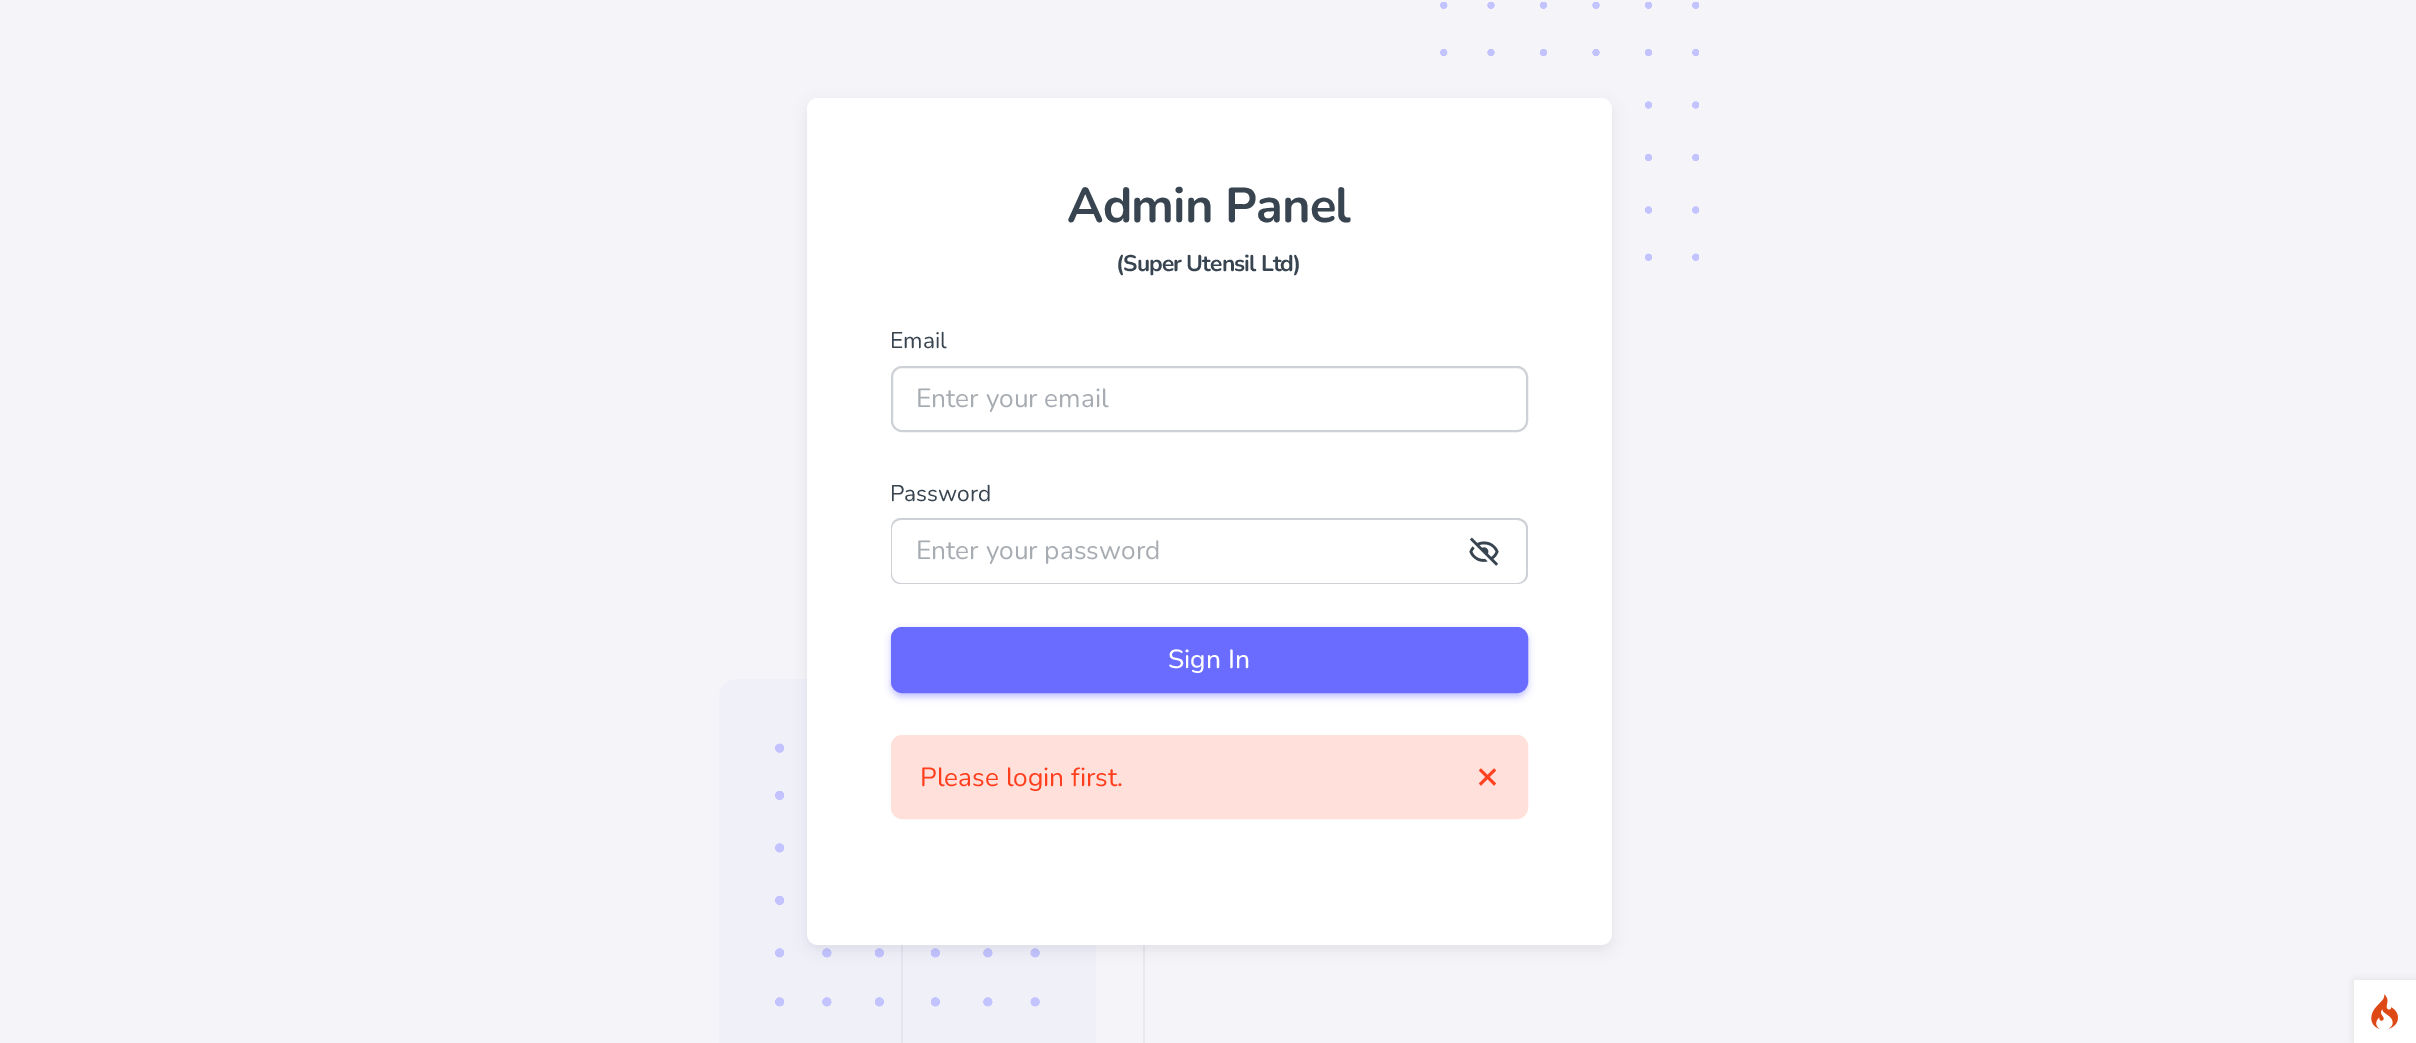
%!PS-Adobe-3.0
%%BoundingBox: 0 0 2416 1043
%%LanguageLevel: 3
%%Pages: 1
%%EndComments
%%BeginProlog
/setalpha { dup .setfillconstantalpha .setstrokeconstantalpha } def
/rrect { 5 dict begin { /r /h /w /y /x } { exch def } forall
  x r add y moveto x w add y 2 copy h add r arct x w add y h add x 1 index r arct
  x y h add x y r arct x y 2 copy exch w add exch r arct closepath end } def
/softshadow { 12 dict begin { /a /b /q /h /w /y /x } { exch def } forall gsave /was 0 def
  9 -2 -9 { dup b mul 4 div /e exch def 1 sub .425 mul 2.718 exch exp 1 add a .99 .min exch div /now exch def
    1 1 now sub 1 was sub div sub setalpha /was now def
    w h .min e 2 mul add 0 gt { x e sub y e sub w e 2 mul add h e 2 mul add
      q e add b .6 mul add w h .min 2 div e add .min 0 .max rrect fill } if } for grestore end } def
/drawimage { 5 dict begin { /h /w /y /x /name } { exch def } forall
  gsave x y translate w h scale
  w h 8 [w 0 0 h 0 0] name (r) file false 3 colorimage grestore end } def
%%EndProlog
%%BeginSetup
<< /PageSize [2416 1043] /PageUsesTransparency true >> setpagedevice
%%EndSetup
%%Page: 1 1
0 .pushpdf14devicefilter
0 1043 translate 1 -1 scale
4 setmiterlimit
0.961 0.961 0.976 setrgbcolor
0 0 2416 1043 rectfill
(images/1.raw) 1440 2 259 259 drawimage
(images/4.raw) 719 679 426 364 drawimage
0.133 0.188 0.243 setrgbcolor
807 103 805 847 11 7 0.1 softshadow
1 setgray
807 98 805 847 11 rrect fill
0.808 0.82 0.835 setrgbcolor
2 setlinewidth
892 367 635 64 10 rrect stroke
newpath 1442 518 moveto 1517 518 lineto 1523 518 1528 523 1528 528 curveto 1528 574 lineto 1528 580 1523 584 1517 584 curveto 1442 584 lineto closepath 1442 520 moveto 1517 520 lineto 1522 520 1526 524 1526 528 curveto 1526 574 lineto 1526 579 1522 583 1517 583 curveto 1442 583 lineto closepath eofill
newpath 901 518 moveto 1444 518 lineto 1444 584 lineto 901 584 lineto 895 584 891 580 891 574 curveto 891 528 lineto 891 523 895 518 901 518 curveto closepath 901 520 moveto 1444 520 lineto 1444 583 lineto 901 583 lineto 896 583 892 579 892 574 curveto 892 528 lineto 892 524 896 520 901 520 curveto closepath eofill
(images/2.raw) 1469 537 30 29 drawimage
0.412 0.424 1 setrgbcolor
891 630 637 67 11 3.5 0.4 softshadow
892 628 635 64 10 rrect gsave fill grestore
stroke
1 0.878 0.859 setrgbcolor
892 736 635 82 10 rrect gsave fill grestore
stroke
(images/3.raw) 1479 768 17 18 drawimage
0.875 setgray
2354 980 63 63 0 3.5 1 softshadow
1 setgray
2354 980 62 63 rectfill
(images/5.raw) 2371 994 27 35 drawimage
/Nunito-Bold [49 0 0 -49 0 0] selectfont
0.22 0.271 0.318 setrgbcolor
1067 222 moveto -0.9 0 (Admin Panel) ashow
/Nunito-Bold [22.75 0 0 -22.75 0 0] selectfont
1116 271 moveto -0.9 0 (\(Super Utensil Ltd\)) ashow
/Nunito-Regular [22.75 0 0 -22.75 0 0] selectfont
890 348 moveto (Email) show
/Nunito-Regular [26.25 0 0 -26.25 0 0] selectfont
0.655 0.675 0.698 setrgbcolor
916 407 moveto (Enter your email) show
/Nunito-Regular [22.75 0 0 -22.75 0 0] selectfont
0.22 0.271 0.318 setrgbcolor
890 501 moveto (Password) show
/Nunito-Regular [26.25 0 0 -26.25 0 0] selectfont
0.655 0.675 0.698 setrgbcolor
916 559 moveto (Enter your password) show
/Nunito-Medium [26.25 0 0 -26.25 0 0] selectfont
1 setgray
1168 668 moveto (Sign In) show
/Nunito-Regular [26.25 0 0 -26.25 0 0] selectfont
1 0.243 0.114 setrgbcolor
920 786 moveto (Please login first.) show
.poppdf14devicefilter showpage
%%EOF
